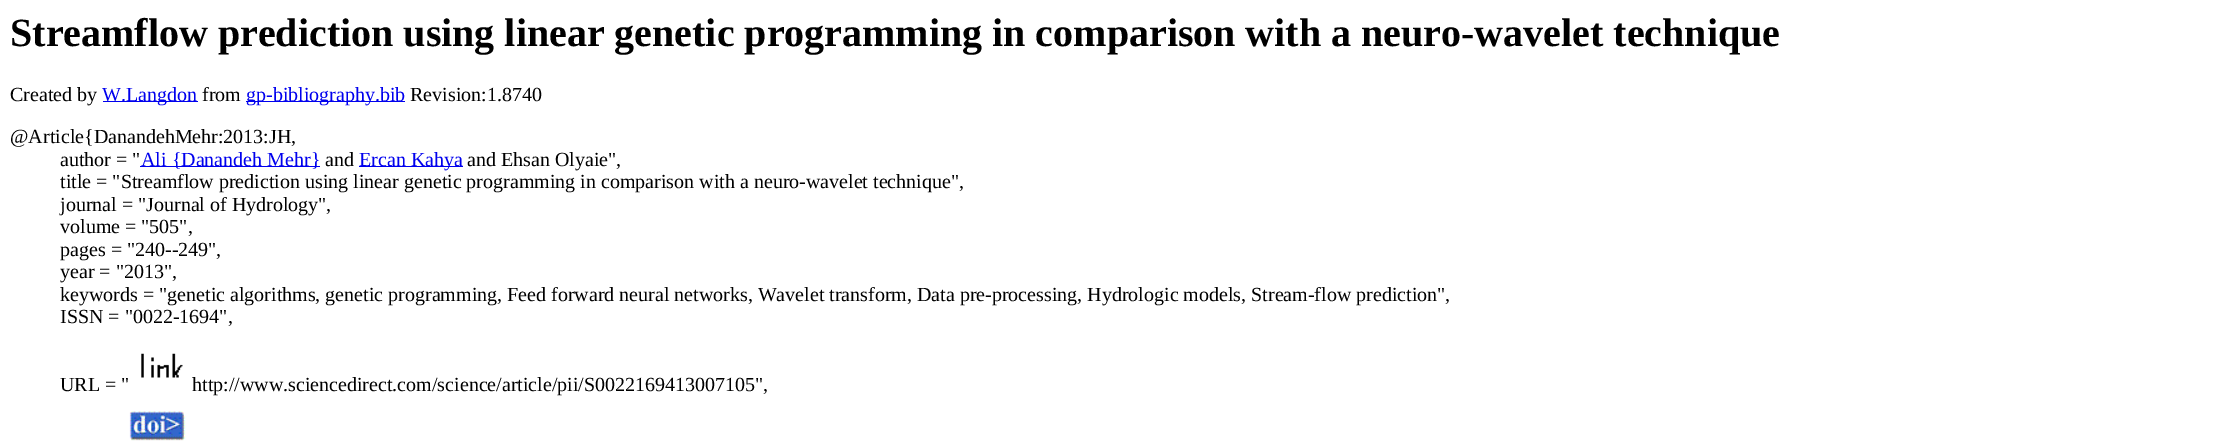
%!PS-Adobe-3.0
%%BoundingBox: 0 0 2219 441
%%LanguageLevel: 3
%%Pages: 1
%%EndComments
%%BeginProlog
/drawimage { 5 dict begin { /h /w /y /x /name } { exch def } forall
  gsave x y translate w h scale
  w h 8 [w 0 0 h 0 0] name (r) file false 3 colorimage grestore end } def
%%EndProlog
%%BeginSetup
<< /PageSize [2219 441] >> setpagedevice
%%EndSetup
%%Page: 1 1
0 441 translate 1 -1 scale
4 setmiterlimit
1 setgray
0 0 2219 441 rectfill
0 0 0.933 setrgbcolor
103 101 95 1 rectfill
246 101 159 1 rectfill
140 166 180 1 rectfill
359 166 104 1 rectfill
(images/1.raw) 141 353 42 25 drawimage
(images/2.raw) 129 411 57 30 drawimage
/LiberationSerif-Bold [40 0 0 -40 0 0] selectfont
0 setgray
10 46 moveto (Streamflow prediction using linear genetic programming in comparison with a neuro-wavelet technique) show
/LiberationSerif-Regular [20 0 0 -20 0 0] selectfont
10 101 moveto (Created by) show
0 0 0.933 setrgbcolor
102 101 moveto (W.Langdon) show
0 setgray
202 101 moveto (from) show
0 0 0.933 setrgbcolor
246 101 moveto (gp-bibliography.bib) show
0 setgray
410 101 moveto (Revision:1.8740) show
10 143 moveto (@Article{DanandehMehr:2013:JH,) show
60 166 moveto (author = ") show
0 0 0.933 setrgbcolor
141 166 moveto (Ali {Danandeh Mehr}) show
0 setgray
325 166 moveto (and) show
0 0 0.933 setrgbcolor
359 166 moveto (Ercan Kahya) show
0 setgray
467 166 moveto (and Ehsan Olyaie",) show
60 188 moveto (title = "Streamflow prediction using linear genetic programming in comparison with a neuro-wavelet technique",) show
60 211 moveto (journal = "Journal of Hydrology",) show
60 233 moveto (volume = "505",) show
60 256 moveto (pages = "240--249",) show
60 278 moveto (year = "2013",) show
60 301 moveto (keywords = "genetic algorithms, genetic programming, Feed forward neural networks, Wavelet transform, Data pre-processing, Hydrologic models, Stream-flow prediction",) show
60 323 moveto (ISSN = "0022-1694",) show
60 391 moveto (URL = ") show
192 391 moveto (http://www.sciencedirect.com/science/article/pii/S0022169413007105",) show
showpage
%%EOF
